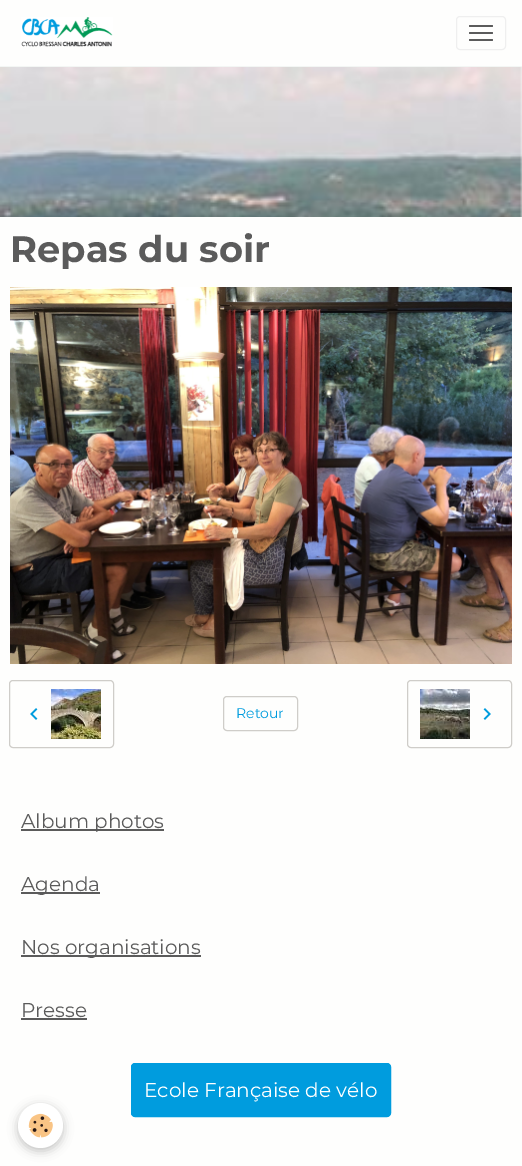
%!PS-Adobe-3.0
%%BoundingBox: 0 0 522 1166
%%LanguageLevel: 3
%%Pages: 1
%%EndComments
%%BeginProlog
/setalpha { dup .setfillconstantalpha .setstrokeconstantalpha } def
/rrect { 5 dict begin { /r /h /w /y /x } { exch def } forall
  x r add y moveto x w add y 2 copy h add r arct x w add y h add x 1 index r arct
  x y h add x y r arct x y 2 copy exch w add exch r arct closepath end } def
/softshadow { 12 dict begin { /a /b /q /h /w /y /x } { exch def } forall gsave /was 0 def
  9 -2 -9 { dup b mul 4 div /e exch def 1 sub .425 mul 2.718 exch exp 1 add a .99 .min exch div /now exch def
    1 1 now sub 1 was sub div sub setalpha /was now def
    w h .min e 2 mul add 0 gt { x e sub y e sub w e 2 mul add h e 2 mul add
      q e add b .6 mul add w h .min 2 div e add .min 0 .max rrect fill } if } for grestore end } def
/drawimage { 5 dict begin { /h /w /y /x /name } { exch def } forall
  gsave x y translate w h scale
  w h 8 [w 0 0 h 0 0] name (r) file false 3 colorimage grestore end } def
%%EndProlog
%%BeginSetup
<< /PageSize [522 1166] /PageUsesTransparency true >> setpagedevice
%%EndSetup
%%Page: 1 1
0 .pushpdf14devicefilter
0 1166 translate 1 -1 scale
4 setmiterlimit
0.996 0.996 0.992 setrgbcolor
0 0 522 1166 rectfill
0.953 0.965 0.957 setrgbcolor
0 66 522 1 rectfill
(images/1.raw) 21 17 92 30 drawimage
0.937 setgray
456.5 16.5 49 33 3.5 rrect stroke
0.357 setgray
469 25 24 2 1 rrect fill
469 32 24 2 1 rrect fill
469 39 24 2 1 rrect fill
(images/2.raw) 0 67 522 150 drawimage
(images/3.raw) 10 287 502 377 drawimage
0.812 0.804 0.788 setrgbcolor
9.5 680.5 104 67 3.5 rrect stroke
(images/4.raw) 30 708 8 12 drawimage
(images/5.raw) 51 689 50 50 drawimage
223.5 696.5 74 34 3.5 rrect stroke
407.5 680.5 104 67 3.5 rrect stroke
(images/6.raw) 420 689 50 50 drawimage
(images/7.raw) 483 708 8 12 drawimage
0.357 setgray
21 829 143 2 rectfill
21 892 79 2 rectfill
21 955 180 2 rectfill
21 1018 66 2 rectfill
0 0.612 0.871 setrgbcolor
131.5 1063.5 259 53 3.5 rrect gsave fill grestore
stroke
0 setgray
18 1106 45 45 22.5 5 0.24 softshadow
1 setgray
newpath 40.5 1125.5 22.5 0 360 arc closepath fill
(images/8.raw) 28 1113 25 25 drawimage
/Montserrat-Bold [36.75 0 0 -36.75 0 0] selectfont
0.357 setgray
10 262 moveto (Repas du soir) show
/Montserrat-Regular [14 0 0 -14 0 0] selectfont
0 0.612 0.871 setrgbcolor
236 718 moveto (Retour) show
/Montserrat-Regular [20 0 0 -20 0 0] selectfont
0.357 setgray
21 828 moveto (Album photos) show
21 891 moveto (Agenda) show
21 954 moveto (Nos organisations) show
21 1017 moveto (Presse) show
1 setgray
144 1097 moveto (Ecole Française de vélo) show
.poppdf14devicefilter showpage
%%EOF
